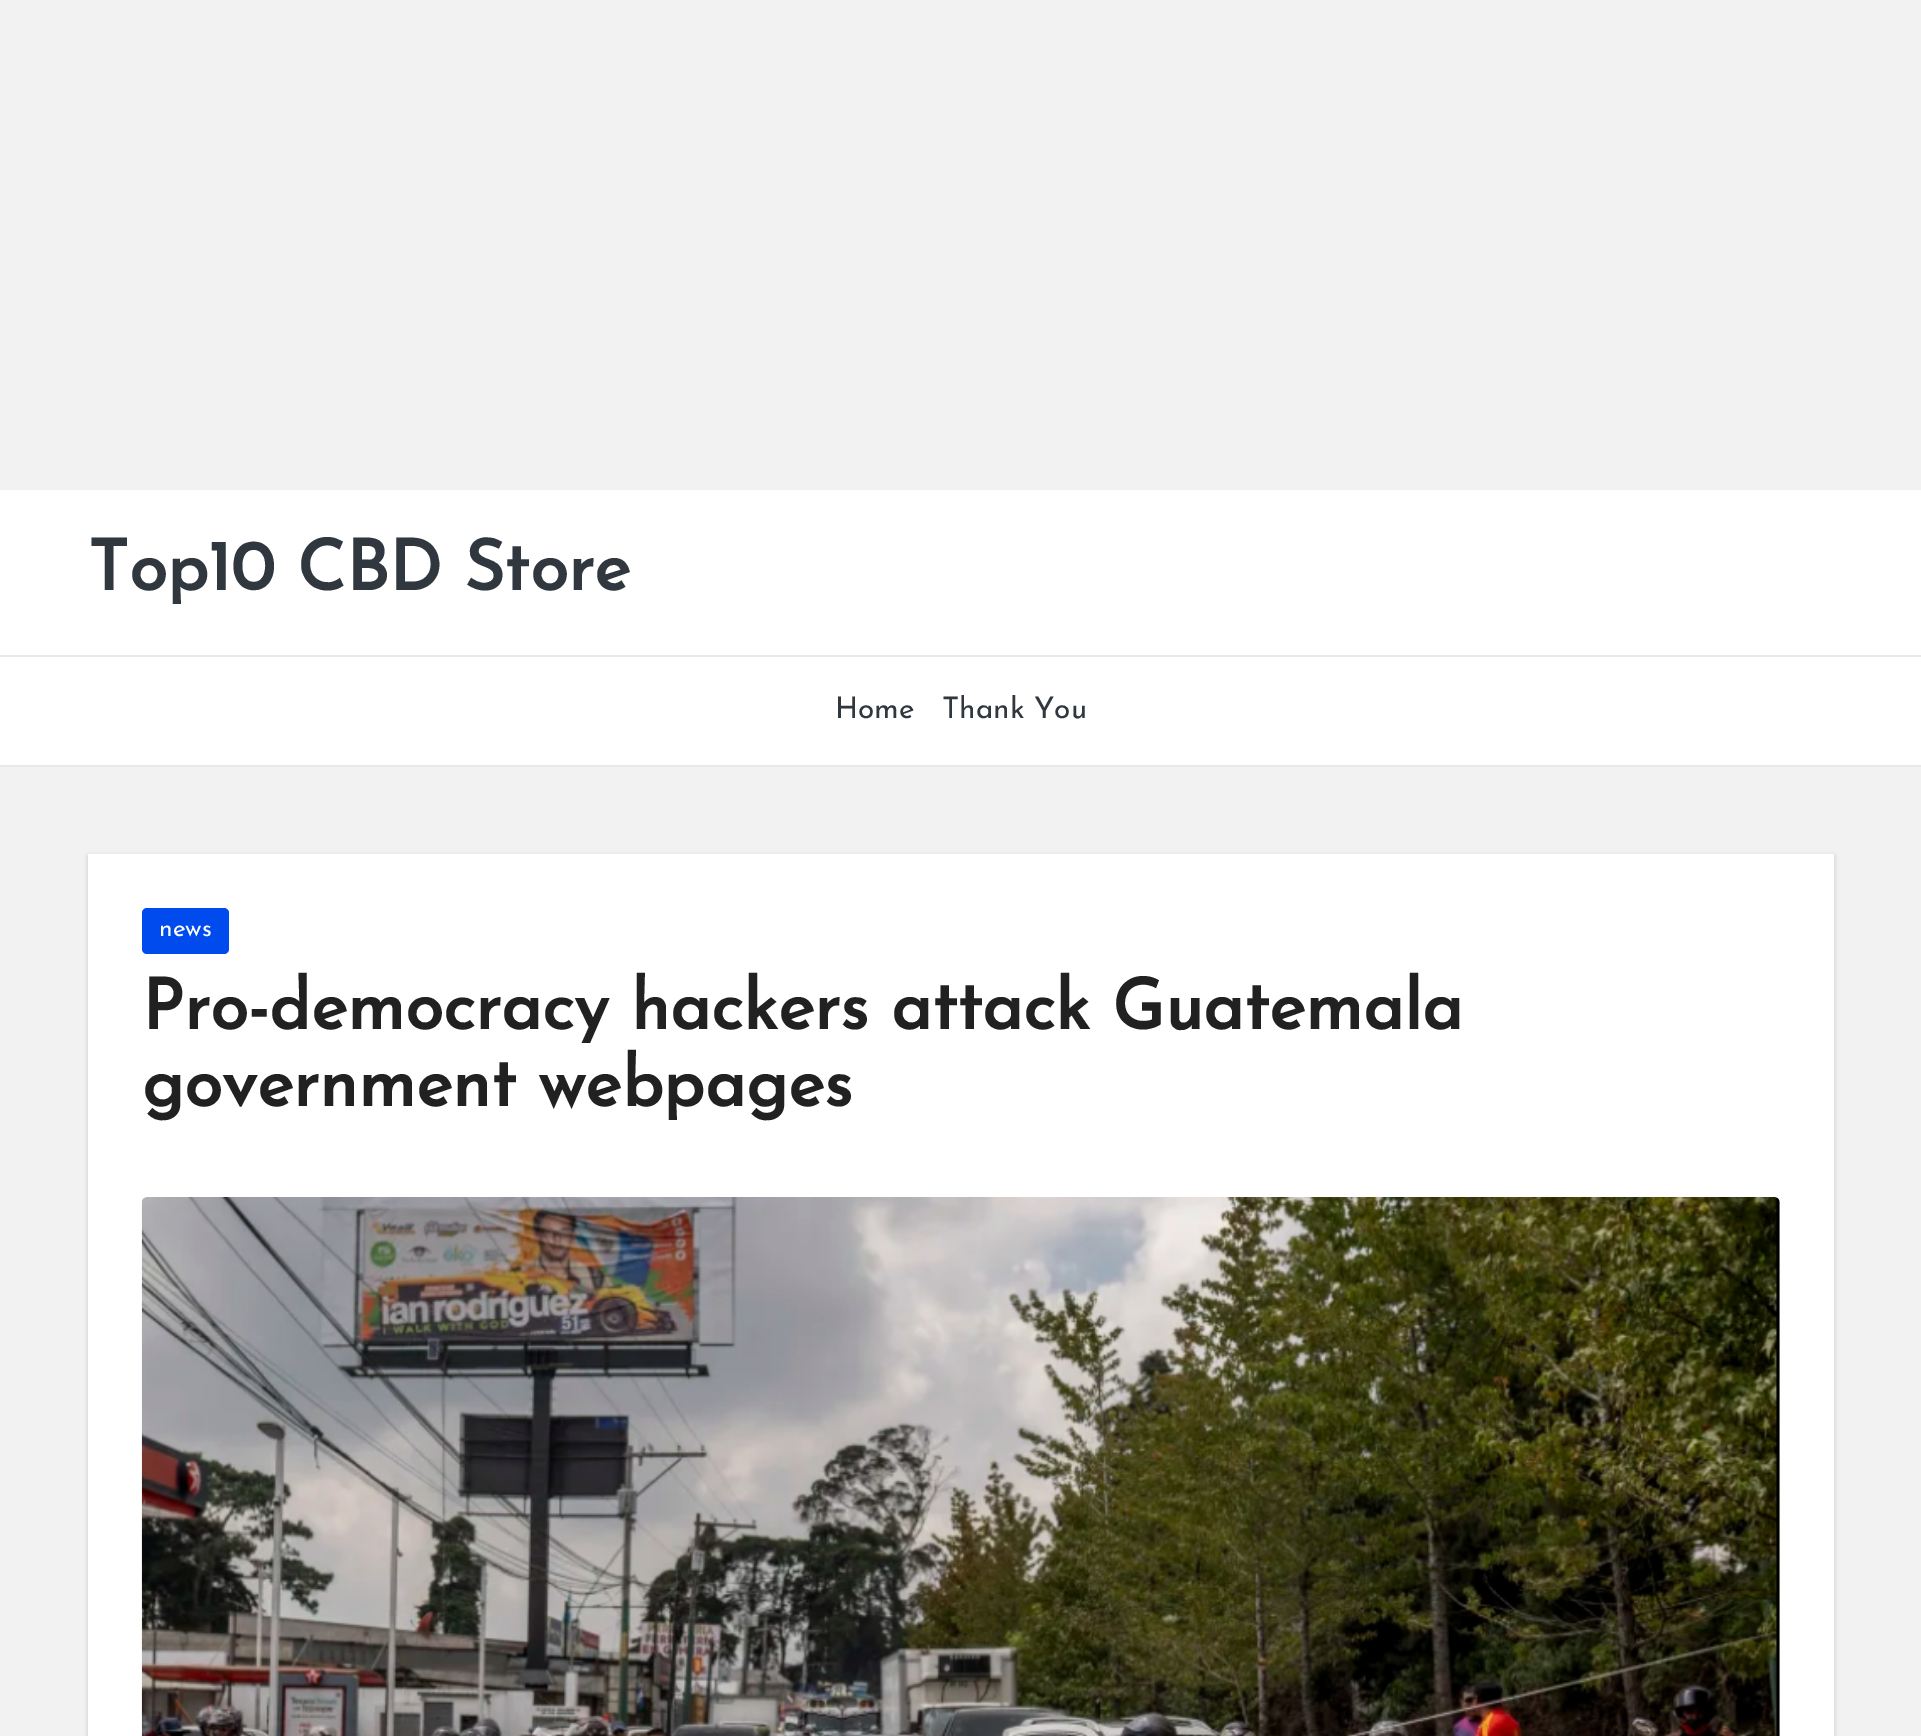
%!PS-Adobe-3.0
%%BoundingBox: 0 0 1921 1736
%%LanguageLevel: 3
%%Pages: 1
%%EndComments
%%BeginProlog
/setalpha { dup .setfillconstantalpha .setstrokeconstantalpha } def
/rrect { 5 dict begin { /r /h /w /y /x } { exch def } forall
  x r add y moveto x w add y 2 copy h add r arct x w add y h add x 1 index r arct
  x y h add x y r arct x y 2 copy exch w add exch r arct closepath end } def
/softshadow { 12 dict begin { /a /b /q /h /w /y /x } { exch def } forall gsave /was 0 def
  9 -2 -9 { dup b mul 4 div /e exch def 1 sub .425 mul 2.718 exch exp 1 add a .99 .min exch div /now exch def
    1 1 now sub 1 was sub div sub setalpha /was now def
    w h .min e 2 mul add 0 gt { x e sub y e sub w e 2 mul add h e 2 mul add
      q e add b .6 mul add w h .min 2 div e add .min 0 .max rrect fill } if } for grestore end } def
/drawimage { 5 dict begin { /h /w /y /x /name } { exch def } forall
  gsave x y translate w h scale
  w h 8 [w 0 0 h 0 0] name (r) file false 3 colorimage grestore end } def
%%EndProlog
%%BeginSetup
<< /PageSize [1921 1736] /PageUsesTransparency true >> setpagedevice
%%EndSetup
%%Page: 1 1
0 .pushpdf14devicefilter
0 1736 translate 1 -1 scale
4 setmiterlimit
0.949 setgray
0 0 1921 1736 rectfill
1 setgray
0 490 1921 165 rectfill
0 657 1921 108 rectfill
0.914 setgray
0 655 1921 2 rectfill
0 765 1921 2 rectfill
0 setgray
88 856 1746 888 0 2.5 0.18 softshadow
1 setgray
88 854 1746 882 rectfill
0 0.294 0.929 setrgbcolor
142 908 87 46 5 rrect fill
(images/1.raw) 141 1197 1639 539 drawimage
/JosefinSans-Bold [70 0 0 -70 0 0] selectfont
0.188 0.216 0.243 setrgbcolor
88 590 moveto (Top10 CBD Store) show
/JosefinSans-Thin [29.75 0 0 -29.75 0 0] selectfont
835 718 moveto (Home) show
942 718 moveto (Thank You) show
/JosefinSans-Thin [24.5 0 0 -24.5 0 0] selectfont
1 setgray
159 936 moveto (news) show
/JosefinSans-Bold [70 0 0 -70 0 0] selectfont
0.129 setgray
142 1029 moveto (Pro-democracy hackers attack Guatemala) show
142 1106 moveto (government webpages) show
.poppdf14devicefilter showpage
%%EOF
